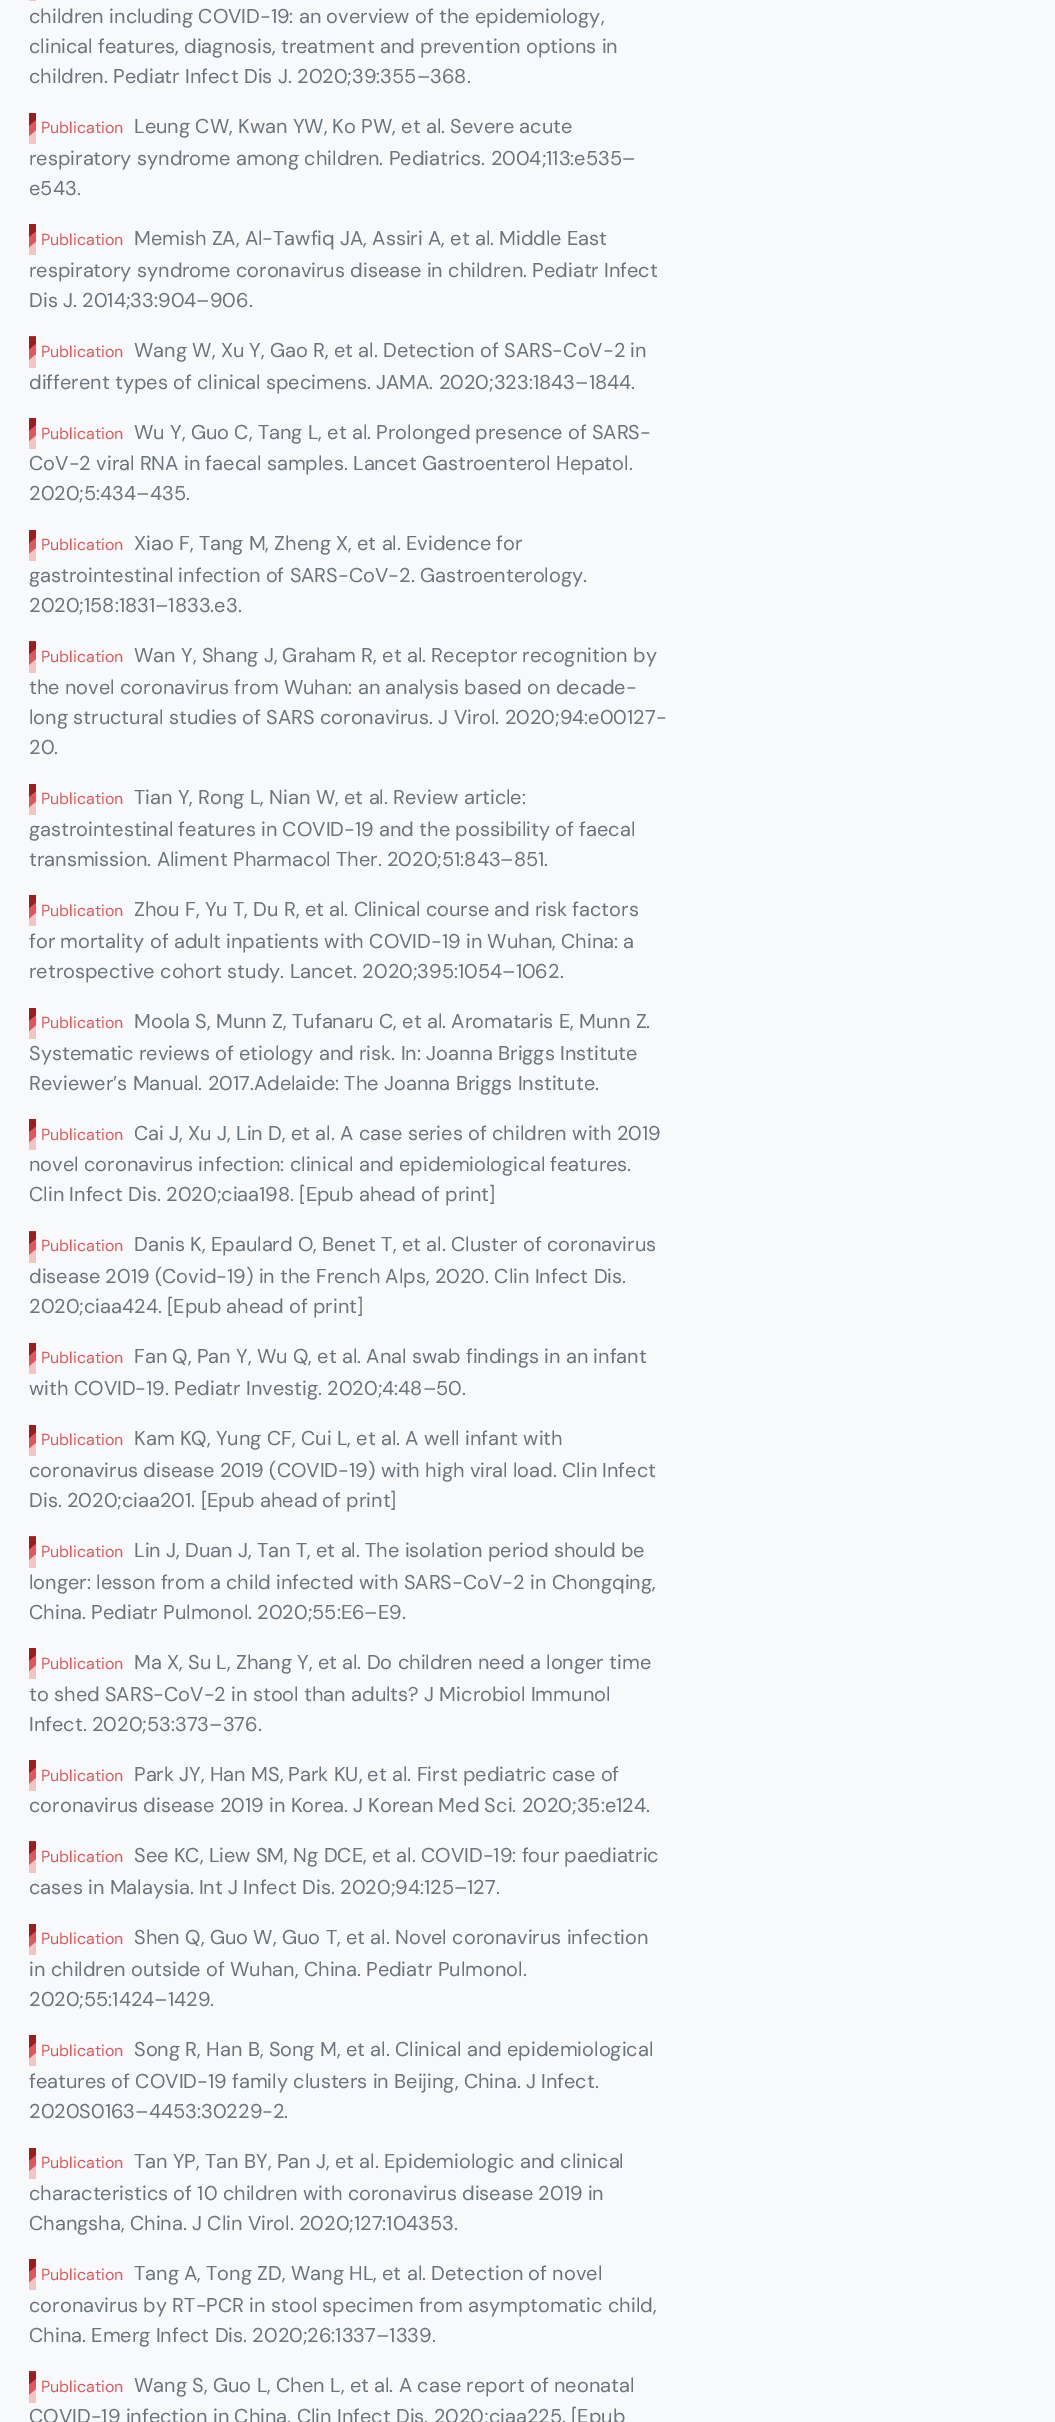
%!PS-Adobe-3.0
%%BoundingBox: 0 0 1055 2422
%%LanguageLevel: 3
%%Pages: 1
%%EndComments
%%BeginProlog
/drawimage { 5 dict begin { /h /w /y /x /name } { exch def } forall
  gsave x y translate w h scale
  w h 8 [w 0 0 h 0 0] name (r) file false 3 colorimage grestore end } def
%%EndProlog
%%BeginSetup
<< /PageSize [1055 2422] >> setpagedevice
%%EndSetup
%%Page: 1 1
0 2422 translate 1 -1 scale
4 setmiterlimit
0.973 0.976 0.98 setrgbcolor
0 0 1055 2422 rectfill
0.957 0.765 0.769 setrgbcolor
29 0 7 1 rectfill
(images/1.raw) 29 113 7 31 drawimage
(images/2.raw) 29 224 7 31 drawimage
(images/3.raw) 29 336 7 32 drawimage
(images/1.raw) 29 418 7 31 drawimage
(images/4.raw) 29 530 7 31 drawimage
(images/3.raw) 29 641 7 32 drawimage
(images/2.raw) 29 784 7 31 drawimage
(images/4.raw) 29 895 7 31 drawimage
(images/1.raw) 29 1008 7 31 drawimage
(images/2.raw) 29 1119 7 31 drawimage
(images/3.raw) 29 1231 7 32 drawimage
(images/1.raw) 29 1343 7 31 drawimage
(images/4.raw) 29 1425 7 31 drawimage
(images/3.raw) 29 1536 7 32 drawimage
(images/1.raw) 29 1648 7 31 drawimage
(images/4.raw) 29 1760 7 31 drawimage
(images/3.raw) 29 1841 7 32 drawimage
(images/2.raw) 29 1924 7 31 drawimage
(images/4.raw) 29 2035 7 31 drawimage
(images/1.raw) 29 2148 7 31 drawimage
(images/2.raw) 29 2259 7 31 drawimage
(images/3.raw) 29 2371 7 32 drawimage
/DMSans-Regular [20 0 0 -20 0 0] selectfont
0.424 0.459 0.49 setrgbcolor
29 23 moveto (children including COVID-19: an overview of the epidemiology,) show
29 53 moveto (clinical features, diagnosis, treatment and prevention options in) show
29 83 moveto (children. Pediatr Infect Dis J. 2020;39:355–368.) show
/DMSans-Regular [16 0 0 -16 0 0] selectfont
0.882 0.341 0.349 setrgbcolor
41 133 moveto (Publication) show
/DMSans-Regular [20 0 0 -20 0 0] selectfont
0.424 0.459 0.49 setrgbcolor
134 133 moveto (Leung CW, Kwan YW, Ko PW, et al. Severe acute) show
29 165 moveto (respiratory syndrome among children. Pediatrics. 2004;113:e535–) show
29 195 moveto (e543.) show
/DMSans-Regular [16 0 0 -16 0 0] selectfont
0.882 0.341 0.349 setrgbcolor
41 245 moveto (Publication) show
/DMSans-Regular [20 0 0 -20 0 0] selectfont
0.424 0.459 0.49 setrgbcolor
134 245 moveto (Memish ZA, Al-Tawfiq JA, Assiri A, et al. Middle East) show
29 277 moveto (respiratory syndrome coronavirus disease in children. Pediatr Infect) show
29 307 moveto (Dis J. 2014;33:904–906.) show
/DMSans-Regular [16 0 0 -16 0 0] selectfont
0.882 0.341 0.349 setrgbcolor
41 357 moveto (Publication) show
/DMSans-Regular [20 0 0 -20 0 0] selectfont
0.424 0.459 0.49 setrgbcolor
134 357 moveto (Wang W, Xu Y, Gao R, et al. Detection of SARS-CoV-2 in) show
29 389 moveto (different types of clinical specimens. JAMA. 2020;323:1843–1844.) show
/DMSans-Regular [16 0 0 -16 0 0] selectfont
0.882 0.341 0.349 setrgbcolor
41 439 moveto (Publication) show
/DMSans-Regular [20 0 0 -20 0 0] selectfont
0.424 0.459 0.49 setrgbcolor
134 439 moveto (Wu Y, Guo C, Tang L, et al. Prolonged presence of SARS-) show
29 470 moveto (CoV-2 viral RNA in faecal samples. Lancet Gastroenterol Hepatol.) show
29 500 moveto (2020;5:434–435.) show
/DMSans-Regular [16 0 0 -16 0 0] selectfont
0.882 0.341 0.349 setrgbcolor
41 550 moveto (Publication) show
/DMSans-Regular [20 0 0 -20 0 0] selectfont
0.424 0.459 0.49 setrgbcolor
134 550 moveto (Xiao F, Tang M, Zheng X, et al. Evidence for) show
29 582 moveto (gastrointestinal infection of SARS-CoV-2. Gastroenterology.) show
29 612 moveto (2020;158:1831–1833.e3.) show
/DMSans-Regular [16 0 0 -16 0 0] selectfont
0.882 0.341 0.349 setrgbcolor
41 662 moveto (Publication) show
/DMSans-Regular [20 0 0 -20 0 0] selectfont
0.424 0.459 0.49 setrgbcolor
134 662 moveto (Wan Y, Shang J, Graham R, et al. Receptor recognition by) show
29 694 moveto (the novel coronavirus from Wuhan: an analysis based on decade-) show
29 724 moveto (long structural studies of SARS coronavirus. J Virol. 2020;94:e00127-) show
29 754 moveto (20.) show
/DMSans-Regular [16 0 0 -16 0 0] selectfont
0.882 0.341 0.349 setrgbcolor
41 804 moveto (Publication) show
/DMSans-Regular [20 0 0 -20 0 0] selectfont
0.424 0.459 0.49 setrgbcolor
134 804 moveto (Tian Y, Rong L, Nian W, et al. Review article:) show
29 836 moveto (gastrointestinal features in COVID-19 and the possibility of faecal) show
29 866 moveto (transmission. Aliment Pharmacol Ther. 2020;51:843–851.) show
/DMSans-Regular [16 0 0 -16 0 0] selectfont
0.882 0.341 0.349 setrgbcolor
41 916 moveto (Publication) show
/DMSans-Regular [20 0 0 -20 0 0] selectfont
0.424 0.459 0.49 setrgbcolor
134 916 moveto (Zhou F, Yu T, Du R, et al. Clinical course and risk factors) show
29 948 moveto (for mortality of adult inpatients with COVID-19 in Wuhan, China: a) show
29 978 moveto (retrospective cohort study. Lancet. 2020;395:1054–1062.) show
/DMSans-Regular [16 0 0 -16 0 0] selectfont
0.882 0.341 0.349 setrgbcolor
41 1028 moveto (Publication) show
/DMSans-Regular [20 0 0 -20 0 0] selectfont
0.424 0.459 0.49 setrgbcolor
134 1028 moveto (Moola S, Munn Z, Tufanaru C, et al. Aromataris E, Munn Z.) show
29 1060 moveto (Systematic reviews of etiology and risk. In: Joanna Briggs Institute) show
29 1090 moveto (Reviewer’s Manual. 2017.Adelaide: The Joanna Briggs Institute.) show
/DMSans-Regular [16 0 0 -16 0 0] selectfont
0.882 0.341 0.349 setrgbcolor
41 1140 moveto (Publication) show
/DMSans-Regular [20 0 0 -20 0 0] selectfont
0.424 0.459 0.49 setrgbcolor
134 1140 moveto (Cai J, Xu J, Lin D, et al. A case series of children with 2019) show
29 1171 moveto (novel coronavirus infection: clinical and epidemiological features.) show
29 1201 moveto (Clin Infect Dis. 2020;ciaa198. [Epub ahead of print]) show
/DMSans-Regular [16 0 0 -16 0 0] selectfont
0.882 0.341 0.349 setrgbcolor
41 1251 moveto (Publication) show
/DMSans-Regular [20 0 0 -20 0 0] selectfont
0.424 0.459 0.49 setrgbcolor
134 1251 moveto (Danis K, Epaulard O, Benet T, et al. Cluster of coronavirus) show
29 1283 moveto (disease 2019 \(Covid-19\) in the French Alps, 2020. Clin Infect Dis.) show
29 1313 moveto (2020;ciaa424. [Epub ahead of print]) show
/DMSans-Regular [16 0 0 -16 0 0] selectfont
0.882 0.341 0.349 setrgbcolor
41 1363 moveto (Publication) show
/DMSans-Regular [20 0 0 -20 0 0] selectfont
0.424 0.459 0.49 setrgbcolor
134 1363 moveto (Fan Q, Pan Y, Wu Q, et al. Anal swab findings in an infant) show
29 1395 moveto (with COVID-19. Pediatr Investig. 2020;4:48–50.) show
/DMSans-Regular [16 0 0 -16 0 0] selectfont
0.882 0.341 0.349 setrgbcolor
41 1445 moveto (Publication) show
/DMSans-Regular [20 0 0 -20 0 0] selectfont
0.424 0.459 0.49 setrgbcolor
134 1445 moveto (Kam KQ, Yung CF, Cui L, et al. A well infant with) show
29 1477 moveto (coronavirus disease 2019 \(COVID-19\) with high viral load. Clin Infect) show
29 1507 moveto (Dis. 2020;ciaa201. [Epub ahead of print]) show
/DMSans-Regular [16 0 0 -16 0 0] selectfont
0.882 0.341 0.349 setrgbcolor
41 1557 moveto (Publication) show
/DMSans-Regular [20 0 0 -20 0 0] selectfont
0.424 0.459 0.49 setrgbcolor
134 1557 moveto (Lin J, Duan J, Tan T, et al. The isolation period should be) show
29 1589 moveto (longer: lesson from a child infected with SARS-CoV-2 in Chongqing,) show
29 1619 moveto (China. Pediatr Pulmonol. 2020;55:E6–E9.) show
/DMSans-Regular [16 0 0 -16 0 0] selectfont
0.882 0.341 0.349 setrgbcolor
41 1669 moveto (Publication) show
/DMSans-Regular [20 0 0 -20 0 0] selectfont
0.424 0.459 0.49 setrgbcolor
134 1669 moveto (Ma X, Su L, Zhang Y, et al. Do children need a longer time) show
29 1701 moveto (to shed SARS-CoV-2 in stool than adults? J Microbiol Immunol) show
29 1731 moveto (Infect. 2020;53:373–376.) show
/DMSans-Regular [16 0 0 -16 0 0] selectfont
0.882 0.341 0.349 setrgbcolor
41 1781 moveto (Publication) show
/DMSans-Regular [20 0 0 -20 0 0] selectfont
0.424 0.459 0.49 setrgbcolor
134 1781 moveto (Park JY, Han MS, Park KU, et al. First pediatric case of) show
29 1812 moveto (coronavirus disease 2019 in Korea. J Korean Med Sci. 2020;35:e124.) show
/DMSans-Regular [16 0 0 -16 0 0] selectfont
0.882 0.341 0.349 setrgbcolor
41 1862 moveto (Publication) show
/DMSans-Regular [20 0 0 -20 0 0] selectfont
0.424 0.459 0.49 setrgbcolor
134 1862 moveto (See KC, Liew SM, Ng DCE, et al. COVID-19: four paediatric) show
29 1894 moveto (cases in Malaysia. Int J Infect Dis. 2020;94:125–127.) show
/DMSans-Regular [16 0 0 -16 0 0] selectfont
0.882 0.341 0.349 setrgbcolor
41 1944 moveto (Publication) show
/DMSans-Regular [20 0 0 -20 0 0] selectfont
0.424 0.459 0.49 setrgbcolor
134 1944 moveto (Shen Q, Guo W, Guo T, et al. Novel coronavirus infection) show
29 1976 moveto (in children outside of Wuhan, China. Pediatr Pulmonol.) show
29 2006 moveto (2020;55:1424–1429.) show
/DMSans-Regular [16 0 0 -16 0 0] selectfont
0.882 0.341 0.349 setrgbcolor
41 2056 moveto (Publication) show
/DMSans-Regular [20 0 0 -20 0 0] selectfont
0.424 0.459 0.49 setrgbcolor
134 2056 moveto (Song R, Han B, Song M, et al. Clinical and epidemiological) show
29 2088 moveto (features of COVID-19 family clusters in Beijing, China. J Infect.) show
29 2118 moveto (2020S0163–4453:30229-2.) show
/DMSans-Regular [16 0 0 -16 0 0] selectfont
0.882 0.341 0.349 setrgbcolor
41 2168 moveto (Publication) show
/DMSans-Regular [20 0 0 -20 0 0] selectfont
0.424 0.459 0.49 setrgbcolor
134 2168 moveto (Tan YP, Tan BY, Pan J, et al. Epidemiologic and clinical) show
29 2200 moveto (characteristics of 10 children with coronavirus disease 2019 in) show
29 2230 moveto (Changsha, China. J Clin Virol. 2020;127:104353.) show
/DMSans-Regular [16 0 0 -16 0 0] selectfont
0.882 0.341 0.349 setrgbcolor
41 2280 moveto (Publication) show
/DMSans-Regular [20 0 0 -20 0 0] selectfont
0.424 0.459 0.49 setrgbcolor
134 2280 moveto (Tang A, Tong ZD, Wang HL, et al. Detection of novel) show
29 2312 moveto (coronavirus by RT-PCR in stool specimen from asymptomatic child,) show
29 2342 moveto (China. Emerg Infect Dis. 2020;26:1337–1339.) show
/DMSans-Regular [16 0 0 -16 0 0] selectfont
0.882 0.341 0.349 setrgbcolor
41 2392 moveto (Publication) show
/DMSans-Regular [20 0 0 -20 0 0] selectfont
0.424 0.459 0.49 setrgbcolor
134 2392 moveto (Wang S, Guo L, Chen L, et al. A case report of neonatal) show
29 2423 moveto (COVID-19 infection in China. Clin Infect Dis. 2020;ciaa225. [Epub) show
showpage
%%EOF
